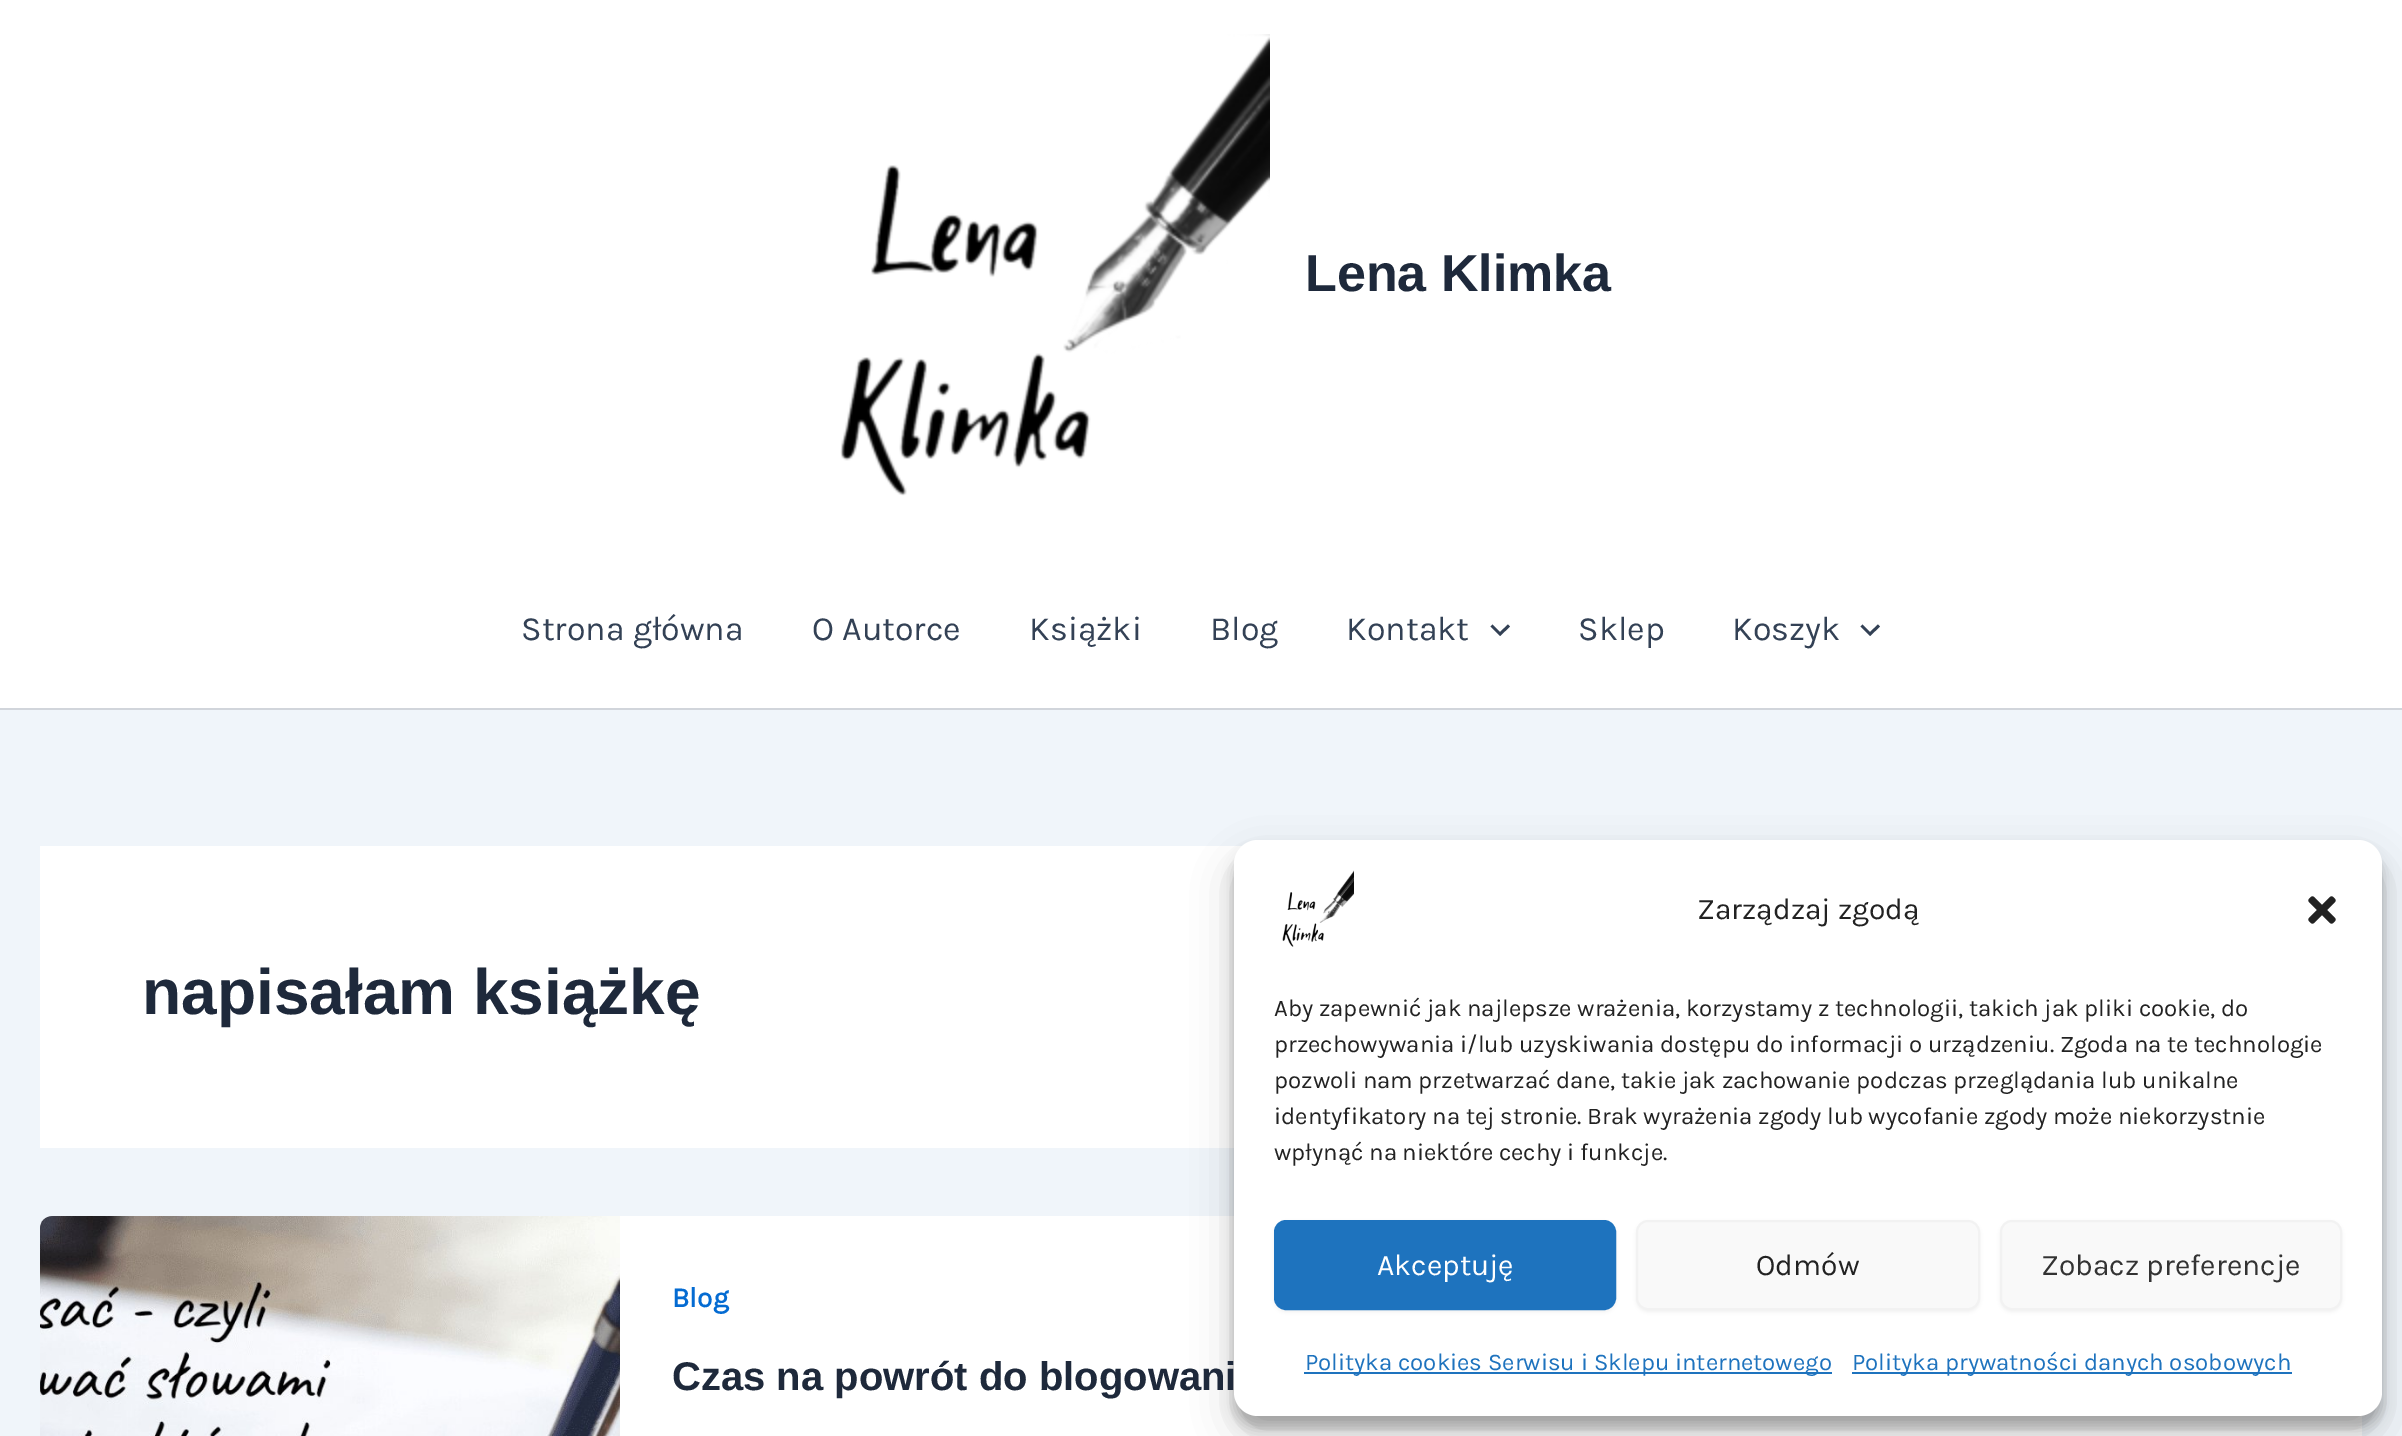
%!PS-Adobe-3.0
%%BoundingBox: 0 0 2402 1436
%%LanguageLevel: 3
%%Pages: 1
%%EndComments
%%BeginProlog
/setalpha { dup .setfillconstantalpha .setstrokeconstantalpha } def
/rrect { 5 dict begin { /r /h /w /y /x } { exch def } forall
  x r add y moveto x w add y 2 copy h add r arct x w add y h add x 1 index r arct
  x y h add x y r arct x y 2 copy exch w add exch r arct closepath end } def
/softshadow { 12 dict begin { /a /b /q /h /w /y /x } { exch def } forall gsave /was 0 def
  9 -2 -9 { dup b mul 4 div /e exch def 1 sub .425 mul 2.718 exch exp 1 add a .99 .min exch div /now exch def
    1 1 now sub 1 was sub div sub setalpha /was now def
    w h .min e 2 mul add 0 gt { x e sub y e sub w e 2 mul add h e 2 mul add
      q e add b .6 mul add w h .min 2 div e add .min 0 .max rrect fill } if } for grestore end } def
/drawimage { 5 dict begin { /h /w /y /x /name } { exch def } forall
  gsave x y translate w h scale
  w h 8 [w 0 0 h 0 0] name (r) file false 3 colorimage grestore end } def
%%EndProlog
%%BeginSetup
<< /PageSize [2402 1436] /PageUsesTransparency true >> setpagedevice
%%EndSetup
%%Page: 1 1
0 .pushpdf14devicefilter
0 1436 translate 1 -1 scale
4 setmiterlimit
0.941 0.961 0.98 setrgbcolor
0 0 2402 1436 rectfill
1 setgray
0 0 2402 708 rectfill
(images/1.raw) 840 34 430 462 drawimage
0.82 0.835 0.859 setrgbcolor
0 708 2402 2 rectfill
0.2 0.255 0.333 setrgbcolor
newpath 1490.5 626.5 moveto 1500 636 lineto 1510 626.5 lineto 1508 624.5 lineto 1500 632 lineto 1492.5 624.5 lineto closepath fill
newpath 1860.5 626.5 moveto 1870 636 lineto 1880 626.5 lineto 1878 624.5 lineto 1870 632 lineto 1862.5 624.5 lineto closepath fill
1 setgray
40 846 1203 302 rectfill
40 1216 2322 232 12 rrect fill
(images/2.raw) 40 1216 580 220 drawimage
0 setgray
1234 852 1148 576 24 6 0.23 softshadow
1234 860 1148 576 24 20 0.19 softshadow
1 setgray
1234 840 1148 576 24 rrect fill
(images/3.raw) 1282 870 72 77 drawimage
(images/4.raw) 2308 896 28 28 drawimage
0 setgray
1274 1222 342 90 12 2 0.05 softshadow
0.118 0.451 0.745 setrgbcolor
1275 1221 340 88 11 rrect gsave fill grestore
2 setlinewidth
stroke
0 setgray
1636 1222 344 90 12 2 0.05 softshadow
0.976 setgray
1637 1221 342 88 11 rrect gsave fill grestore
0.949 setgray
stroke
0 setgray
2000 1222 342 90 12 2 0.05 softshadow
0.976 setgray
2001 1221 340 88 11 rrect gsave fill grestore
0.949 setgray
stroke
0.118 0.451 0.745 setrgbcolor
1304 1372 528 2 rectfill
1852 1372 440 2 rectfill
/LiberationSans-Bold [52 0 0 -52 0 0] selectfont
0.118 0.161 0.231 setrgbcolor
1305 291 moveto (Lena Klimka) show
/Karla-Regular [34 0 0 -34 0 0] selectfont
0.2 0.255 0.333 setrgbcolor
521 640 moveto (Strona główna) show
812 640 moveto (O Autorce) show
1029 640 moveto (Książki) show
1210 640 moveto (Blog) show
1346 640 moveto (Kontakt) show
1578 640 moveto (Sklep) show
1732 640 moveto (Koszyk) show
/LiberationSans-Bold [64 0 0 -64 0 0] selectfont
0.118 0.161 0.231 setrgbcolor
142 1014 moveto (napisałam książkę) show
/Karla-Bold [28 0 0 -28 0 0] selectfont
0.016 0.42 0.824 setrgbcolor
672 1307 moveto (Blog) show
/LiberationSans-Bold [40 0 0 -40 0 0] selectfont
0.118 0.161 0.231 setrgbcolor
672 1390 moveto (Czas na powrót do blogowani) show
/Karla-Regular [30 0 0 -30 0 0] selectfont
0.133 setgray
1697 919 moveto (Zarządzaj zgodą) show
/Karla-Regular [24 0 0 -24 0 0] selectfont
1274 1016 moveto (Aby zapewnić jak najlepsze wrażenia, korzystamy z technologii, takich jak pliki cookie, do) show
1274 1052 moveto (przechowywania i/lub uzyskiwania dostępu do informacji o urządzeniu. Zgoda na te technologie) show
1274 1088 moveto (pozwoli nam przetwarzać dane, takie jak zachowanie podczas przeglądania lub unikalne) show
1274 1124 moveto (identyfikatory na tej stronie. Brak wyrażenia zgody lub wycofanie zgody może niekorzystnie) show
1274 1160 moveto (wpłynąć na niektóre cechy i funkcje.) show
/Karla-Regular [30 0 0 -30 0 0] selectfont
1 setgray
1377 1275 moveto (Akceptuję) show
0.133 setgray
1756 1275 moveto (Odmów) show
0.2 setgray
2041 1275 moveto (Zobacz preferencje) show
/Karla-Regular [24 0 0 -24 0 0] selectfont
0.118 0.451 0.745 setrgbcolor
1305 1370 moveto (Polityka cookies Serwisu i Sklepu internetowego) show
1852 1370 moveto (Polityka prywatności danych osobowych) show
.poppdf14devicefilter showpage
%%EOF
